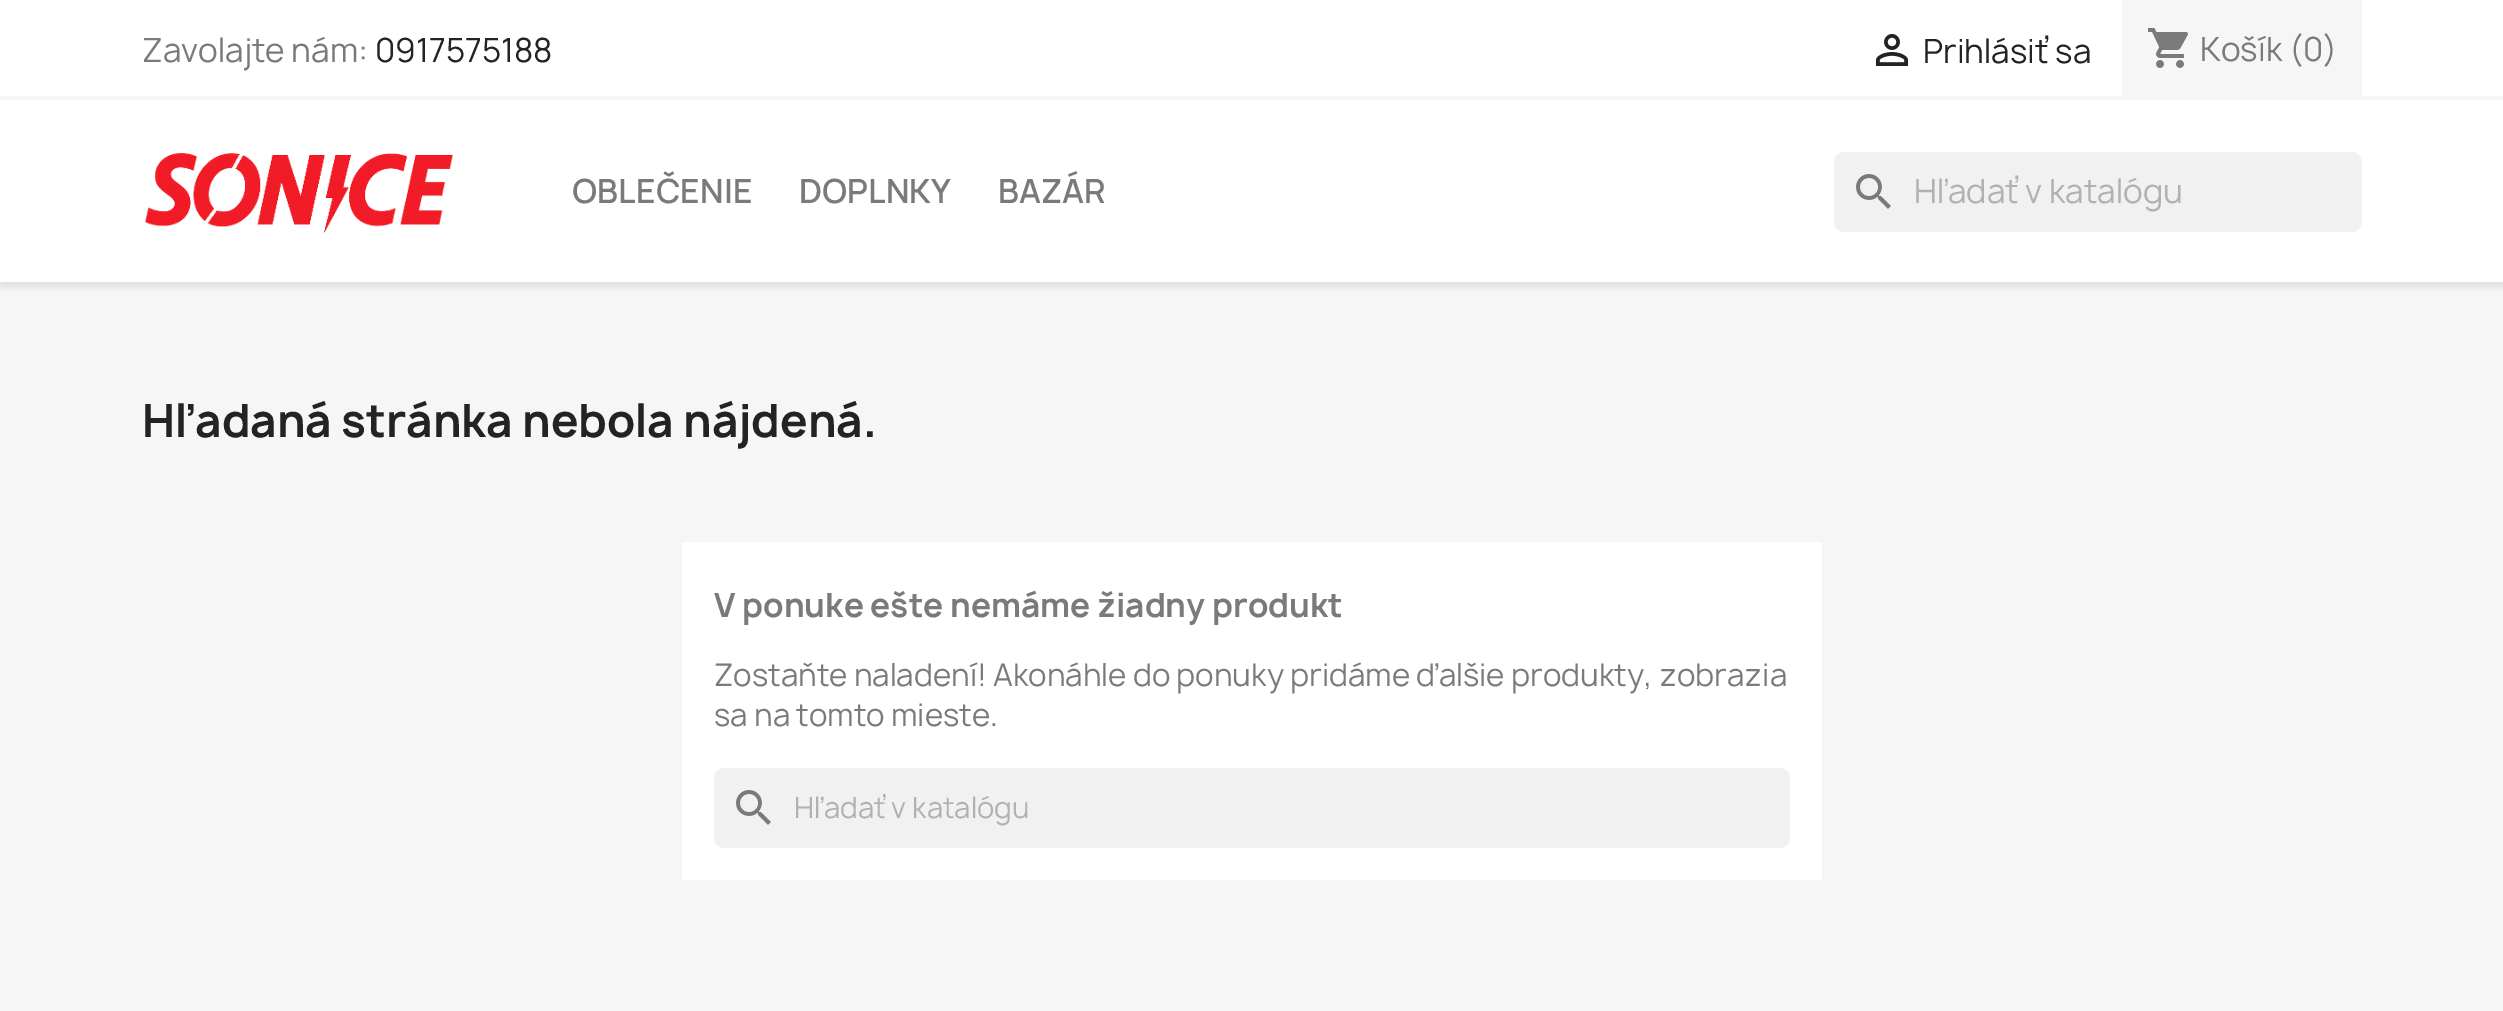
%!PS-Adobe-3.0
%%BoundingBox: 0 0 2503 1011
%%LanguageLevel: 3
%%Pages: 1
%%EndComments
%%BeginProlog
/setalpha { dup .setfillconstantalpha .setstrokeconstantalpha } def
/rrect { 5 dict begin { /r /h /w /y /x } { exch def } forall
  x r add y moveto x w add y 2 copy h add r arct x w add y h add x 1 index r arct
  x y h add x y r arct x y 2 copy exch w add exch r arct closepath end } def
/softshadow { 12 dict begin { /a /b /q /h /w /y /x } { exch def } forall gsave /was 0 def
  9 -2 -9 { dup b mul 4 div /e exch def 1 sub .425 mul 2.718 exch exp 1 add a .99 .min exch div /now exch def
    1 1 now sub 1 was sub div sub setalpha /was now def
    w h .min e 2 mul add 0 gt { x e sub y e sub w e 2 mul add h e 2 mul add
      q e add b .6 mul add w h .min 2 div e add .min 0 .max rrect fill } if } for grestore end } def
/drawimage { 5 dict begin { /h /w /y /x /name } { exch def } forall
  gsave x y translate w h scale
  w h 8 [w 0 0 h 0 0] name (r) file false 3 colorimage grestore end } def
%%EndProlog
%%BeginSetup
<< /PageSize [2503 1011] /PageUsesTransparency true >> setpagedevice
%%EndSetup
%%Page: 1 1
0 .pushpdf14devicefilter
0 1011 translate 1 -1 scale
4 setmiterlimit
1 setgray
0 0 2503 1011 rectfill
0.965 setgray
0 282 2503 729 rectfill
gsave
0 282 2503 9 rectclip
0 setgray
0 4 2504 282 0 5 0.11 softshadow
grestore
0 96 2503 4 rectfill
(images/1.raw) 1875 34 34 32 drawimage
2122 0 240 96 rectfill
(images/2.raw) 2148 28 40 40 drawimage
(images/3.raw) 144 153 310 80 drawimage
0.945 setgray
1834 152 528 80 10 rrect fill
(images/4.raw) 1856 174 35 35 drawimage
1 setgray
682 542 1140 338 rectfill
0.945 setgray
714 768 1076 80 10 rrect fill
(images/4.raw) 736 790 35 35 drawimage
/Manrope-Regular [32 0 0 -32 0 0] selectfont
0.478 setgray
142 62 moveto (Zavolajte nám:) show
0.137 setgray
375 62 moveto (0917575188) show
1923 63 moveto (Prihlásiť sa) show
0.478 setgray
2200 61 moveto (Košík \(0\)) show
/Manrope-SemiBold [32 0 0 -32 0 0] selectfont
572 203 moveto (OBLEČENIE) show
799 203 moveto (DOPLNKY) show
998 203 moveto (BAZÁR) show
/Manrope-Regular [32 0 0 -32 0 0] selectfont
0.694 setgray
1914 203 moveto (Hľadať v katalógu) show
/Manrope-Bold [44 0 0 -44 0 0] selectfont
0.137 setgray
142 437 moveto (Hľadaná stránka nebola nájdená.) show
/Manrope-Bold [32 0 0 -32 0 0] selectfont
0.478 setgray
714 617 moveto (V ponuke ešte nemáme žiadny produkt) show
/Manrope-Regular [30 0 0 -30 0 0] selectfont
714 686 moveto (Zostaňte naladení! Akonáhle do ponuky pridáme ďalšie produkty, zobrazia) show
714 726 moveto (sa na tomto mieste.) show
/Manrope-Regular [28 0 0 -28 0 0] selectfont
0.694 setgray
794 818 moveto (Hľadať v katalógu) show
.poppdf14devicefilter showpage
%%EOF
